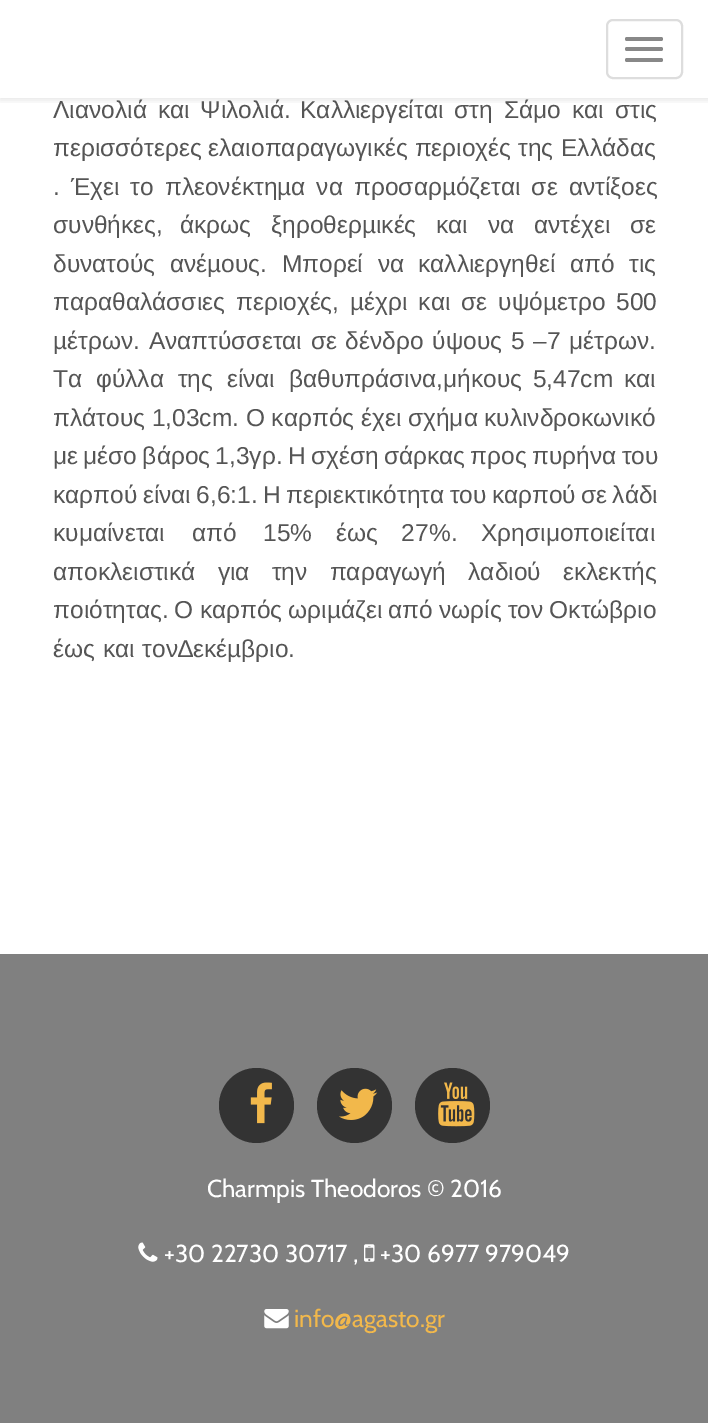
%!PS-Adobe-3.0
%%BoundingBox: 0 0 708 1423
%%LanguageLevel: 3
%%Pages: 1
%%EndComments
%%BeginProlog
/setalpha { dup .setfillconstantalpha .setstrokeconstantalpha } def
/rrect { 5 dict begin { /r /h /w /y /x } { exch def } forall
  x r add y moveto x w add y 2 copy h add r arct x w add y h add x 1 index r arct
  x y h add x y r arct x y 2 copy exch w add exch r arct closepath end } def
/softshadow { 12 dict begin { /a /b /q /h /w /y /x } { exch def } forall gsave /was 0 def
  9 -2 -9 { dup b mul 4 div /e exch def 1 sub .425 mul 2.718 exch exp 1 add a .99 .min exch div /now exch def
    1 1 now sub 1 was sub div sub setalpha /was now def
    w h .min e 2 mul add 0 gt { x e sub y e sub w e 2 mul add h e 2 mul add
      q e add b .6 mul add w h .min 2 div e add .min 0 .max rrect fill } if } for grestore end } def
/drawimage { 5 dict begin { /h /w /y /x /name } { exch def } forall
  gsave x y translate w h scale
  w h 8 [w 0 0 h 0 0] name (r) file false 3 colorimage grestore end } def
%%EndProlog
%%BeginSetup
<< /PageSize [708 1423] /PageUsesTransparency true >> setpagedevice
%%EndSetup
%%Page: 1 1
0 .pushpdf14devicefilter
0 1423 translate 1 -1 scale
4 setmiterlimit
1 setgray
0 0 708 1423 rectfill
gsave
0 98 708 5 rectclip
0 setgray
0 2 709 98 0 3.5 0.1 softshadow
grestore
0.867 setgray
2 setlinewidth
607 20 75 58 6 rrect stroke
0.533 setgray
625 37 38 4 2 rrect fill
625 47 38 4 2 rrect fill
625 58 38 4 2 rrect fill
0.502 setgray
0 954 708 469 rectfill
0.2 setgray
newpath 256.5 1105.5 37.5 0 360 arc closepath fill
(images/1.raw) 250 1082 22 42 drawimage
newpath 354.5 1105.5 37.5 0 360 arc closepath fill
(images/2.raw) 339 1088 39 32 drawimage
newpath 452.5 1105.5 37.5 0 360 arc closepath fill
(images/3.raw) 438 1082 37 45 drawimage
(images/4.raw) 138 1242 20 20 drawimage
(images/5.raw) 364 1244 11 18 drawimage
(images/6.raw) 264 1309 25 20 drawimage
/LiberationSans-Regular [24.5 0 0 -24.5 0 0] selectfont
0.333 setgray
53 118 moveto 4 0 32 (Λιανολιά και Ψιλολιά.) widthshow
300 118 moveto 4.25 0 32 (Καλλιεργείται στη Σάμο και στις) widthshow
53 156 moveto (περισσότερες ελαιοπαραγωγικές περιοχές) show
518 156 moveto 1 0 32 (της Ελλάδας) widthshow
53 195 moveto 4.25 0 32 (. Έχει το πλεονέκτηµα να προσαρµόζεται σε αντίξοες) widthshow
53 233 moveto (συνθήκες,) show
180 233 moveto 13 0 32 (άκρως ξηροθερµικές και να αντέχει σε) widthshow
53 272 moveto 8 0 32 (δυνατούς ανέµους. Μπορεί να) widthshow
418 272 moveto 8 0 32 (καλλιεργηθεί από τις) widthshow
53 310 moveto 4.25 0 32 (παραθαλάσσιες περιοχές, µέχρι και σε υψόµετρο 500) widthshow
53 349 moveto 2 0 32 (µέτρων. Αναπτύσσεται σε δένδρο ύψους 5 –7 μέτρων.) widthshow
53 387 moveto 7 0 32 (Τα φύλλα της είναι) widthshow
289 387 moveto 4 0 32 (βαθυπράσινα,μήκους 5,47cm και) widthshow
53 426 moveto (πλάτους 1,03cm. Ο καρπός έχει σχήμα) show
484 426 moveto (κυλινδροκωνικό) show
53 464 moveto -1.5 0 32 (με μέσο βάρος 1,3γρ. Η σχέση σάρκας προς πυρήνα του) widthshow
53 503 moveto -1.5 0 32 (καρπού είναι 6,6:1. Η περιεκτικότητα του καρπού σε λάδι) widthshow
53 541 moveto 20 0 32 (κυμαίνεται από) widthshow
263 541 moveto 17 0 32 (15% έως 27%. Χρησιμοποιείται) widthshow
53 580 moveto 15.5 0 32 (αποκλειστικά για την παραγωγή λαδιού) widthshow
563 580 moveto (εκλεκτής) show
53 618 moveto -0.75 0 32 (ποιότητας. Ο καρπός ωριµάζει από νωρίς τον Οκτώβριο) widthshow
53 657 moveto 1 0 32 (έως και τον) widthshow
178 657 moveto (∆εκέµβριο.) show
/Cabin-Regular [24.5 0 0 -24.5 0 0] selectfont
1 setgray
207 1197 moveto (Charmpis Theodoros © 2016) show
164 1262 moveto (+30 22730 30717 ,) show
380 1262 moveto (+30 6977 979049) show
0.949 0.722 0.294 setrgbcolor
294 1327 moveto (info@agasto.gr) show
.poppdf14devicefilter showpage
%%EOF
